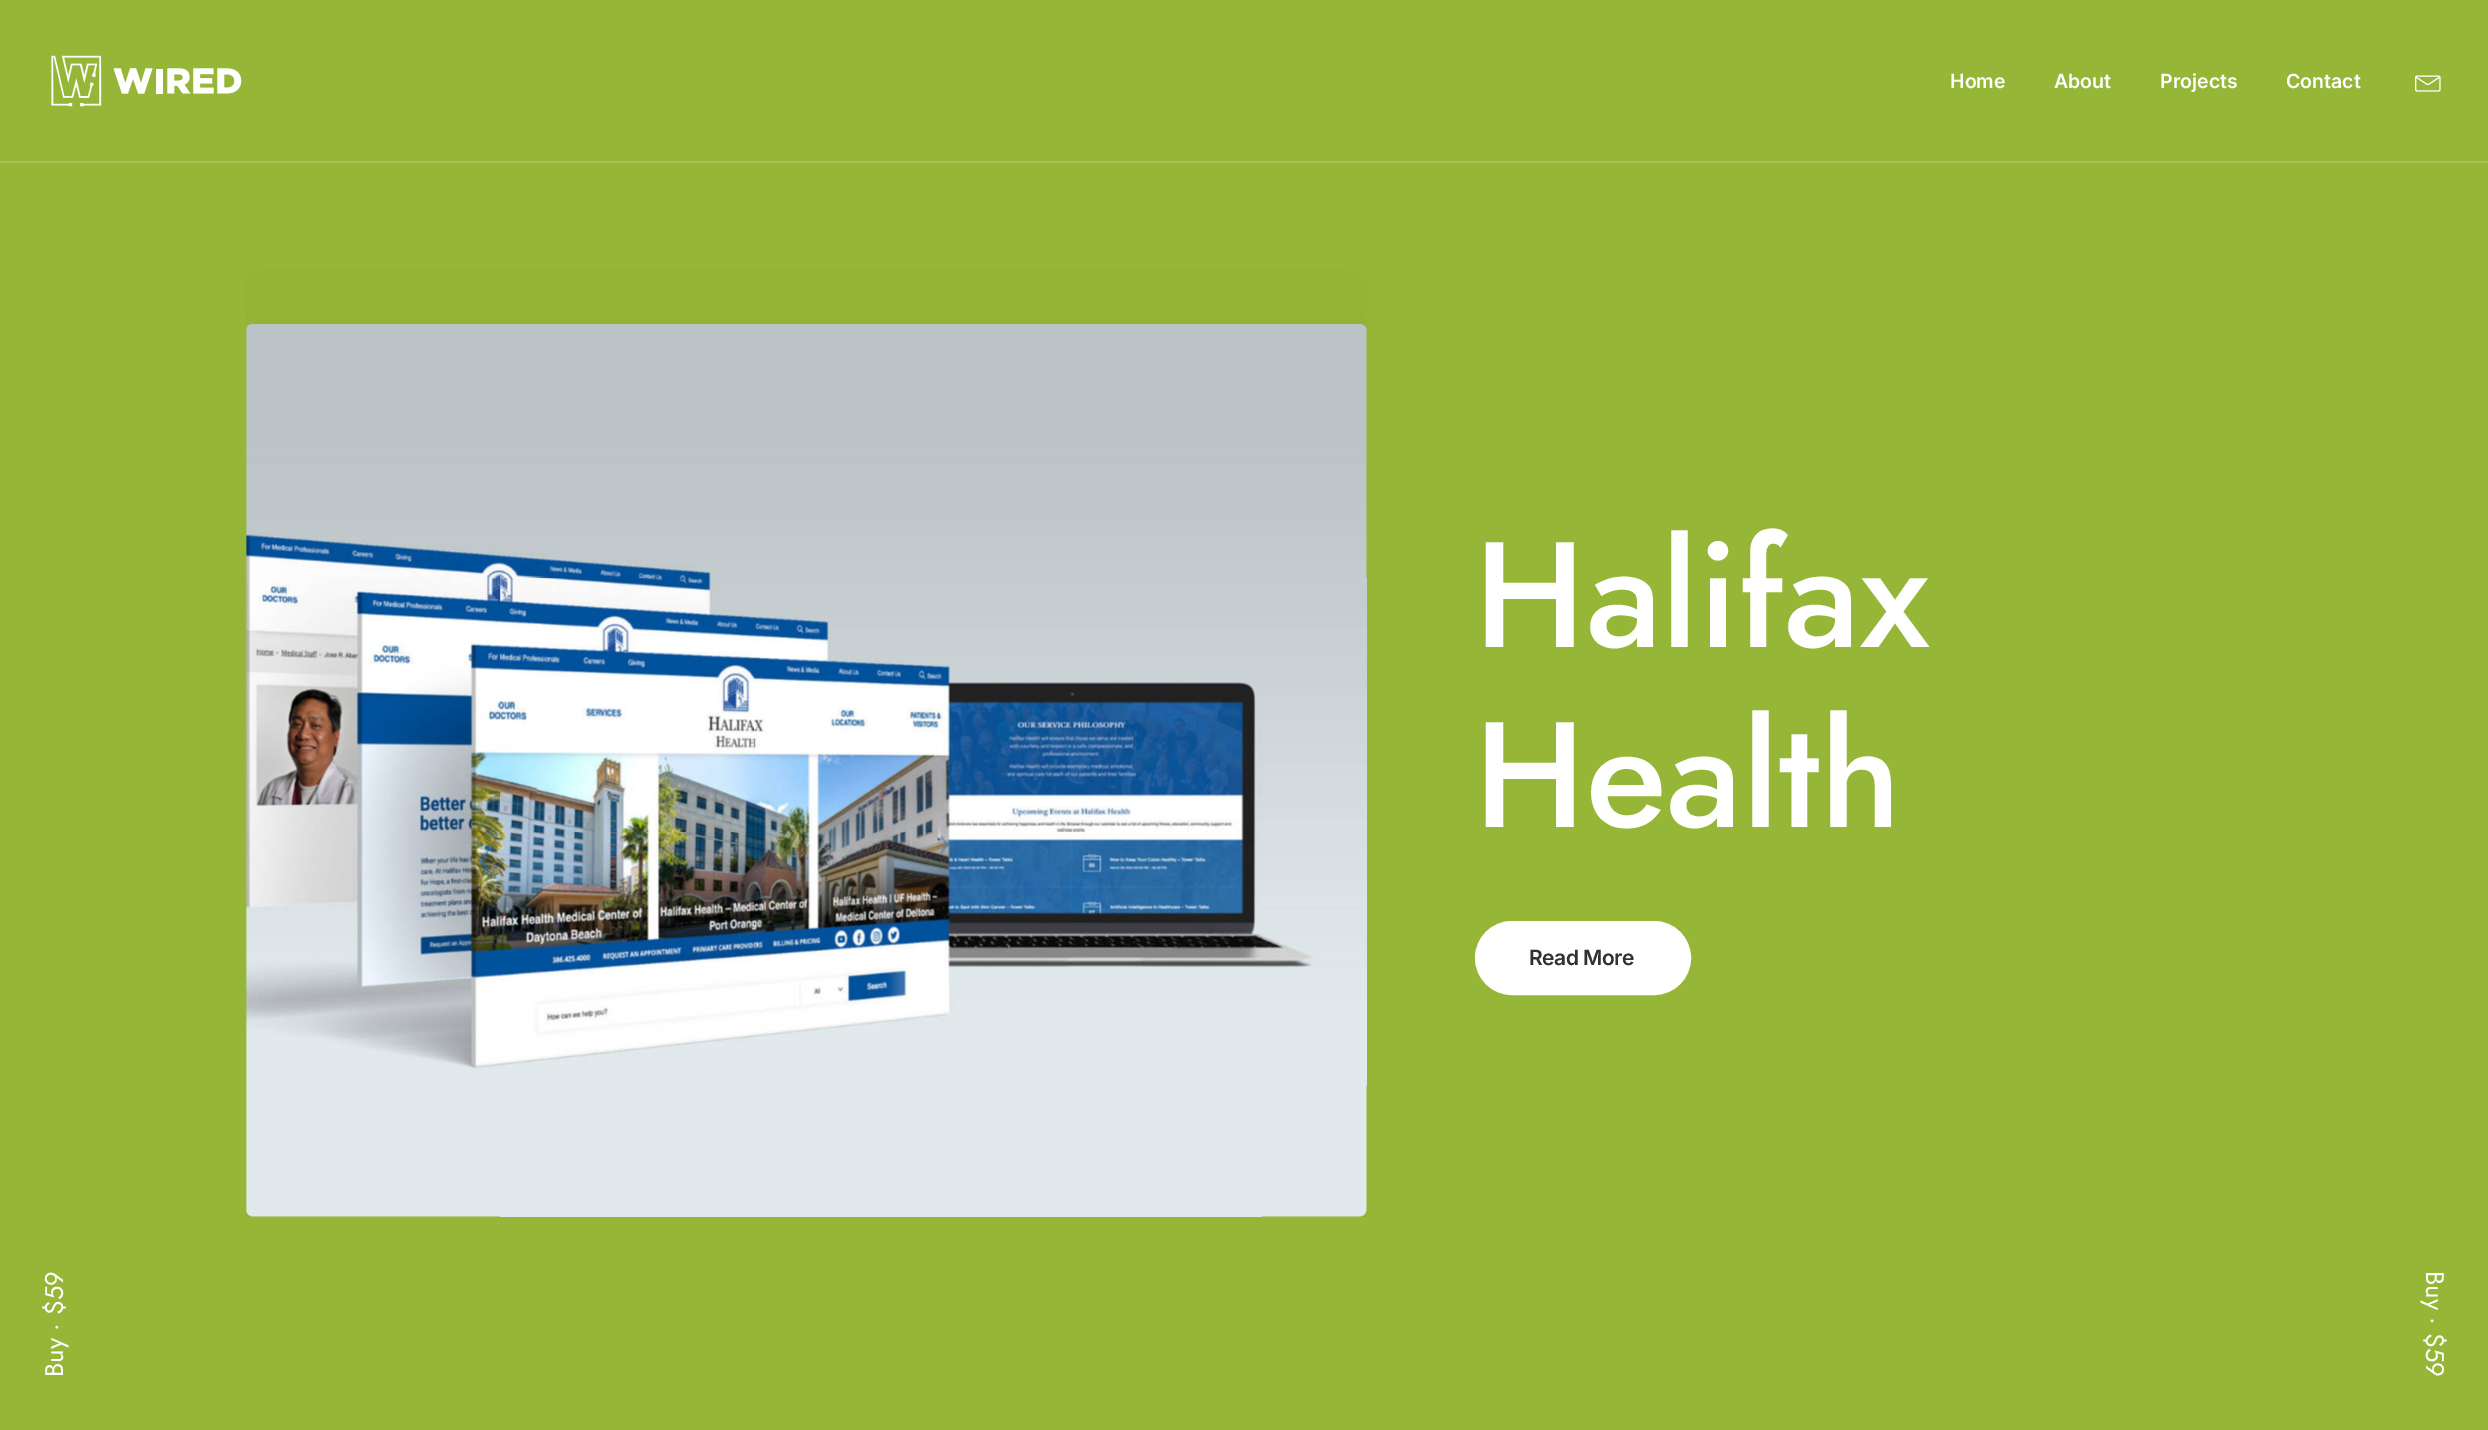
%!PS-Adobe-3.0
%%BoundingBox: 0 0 2488 1430
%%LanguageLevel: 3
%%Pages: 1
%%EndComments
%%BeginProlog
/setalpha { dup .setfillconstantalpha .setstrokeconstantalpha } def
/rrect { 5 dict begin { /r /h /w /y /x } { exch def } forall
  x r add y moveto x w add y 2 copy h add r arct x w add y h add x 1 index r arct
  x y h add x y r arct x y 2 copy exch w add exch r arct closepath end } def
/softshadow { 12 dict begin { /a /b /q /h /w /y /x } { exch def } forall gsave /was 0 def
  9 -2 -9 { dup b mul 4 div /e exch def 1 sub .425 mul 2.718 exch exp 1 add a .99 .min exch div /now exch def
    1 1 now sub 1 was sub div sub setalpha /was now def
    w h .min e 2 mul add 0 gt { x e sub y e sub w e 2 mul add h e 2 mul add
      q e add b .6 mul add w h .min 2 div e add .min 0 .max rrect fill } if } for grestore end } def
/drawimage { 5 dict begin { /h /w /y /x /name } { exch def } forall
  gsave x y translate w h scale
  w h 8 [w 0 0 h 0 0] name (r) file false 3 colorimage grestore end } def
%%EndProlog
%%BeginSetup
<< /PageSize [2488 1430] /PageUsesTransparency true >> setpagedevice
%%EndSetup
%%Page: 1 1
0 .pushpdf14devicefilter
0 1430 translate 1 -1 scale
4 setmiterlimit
0.588 0.714 0.216 setrgbcolor
0 0 2488 1430 rectfill
(images/1.raw) 51 55 191 52 drawimage
(images/2.raw) 2415 75 26 17 drawimage
0.651 0.757 0.333 setrgbcolor
0 161 2488 2 rectfill
gsave
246 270 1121 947 rectclip
0 setgray
246 399 1121 893 6 75 0.1 softshadow
grestore
(images/3.raw) 246 324 1121 893 drawimage
1 setgray
1476 922 214 72 36 rrect gsave fill grestore
2 setlinewidth
stroke
/Inter-SemiBold [19.5 0 0 -19.5 0 0] selectfont
1950 88 moveto (Home) show
2054 88 moveto (About) show
2160 88 moveto (Projects) show
2286 88 moveto (Contact) show
/Jost-Medium [150 0 0 -150 0 0] selectfont
1474 647 moveto (Halifax) show
1474 827 moveto (Health) show
/Inter-SemiBold [21 0 0 -21 0 0] selectfont
0.188 0.192 0.2 setrgbcolor
1529 965 moveto -0.5 0 (Read More) ashow
/Jost-Regular [25.5 0 0 -25.5 0 0] selectfont
1 setgray
gsave 63 1377 translate -90 rotate 0 0 moveto (Buy · $59) show grestore
gsave 2426 1271 translate 90 rotate 0 0 moveto (Buy · $59) show grestore
.poppdf14devicefilter showpage
%%EOF
